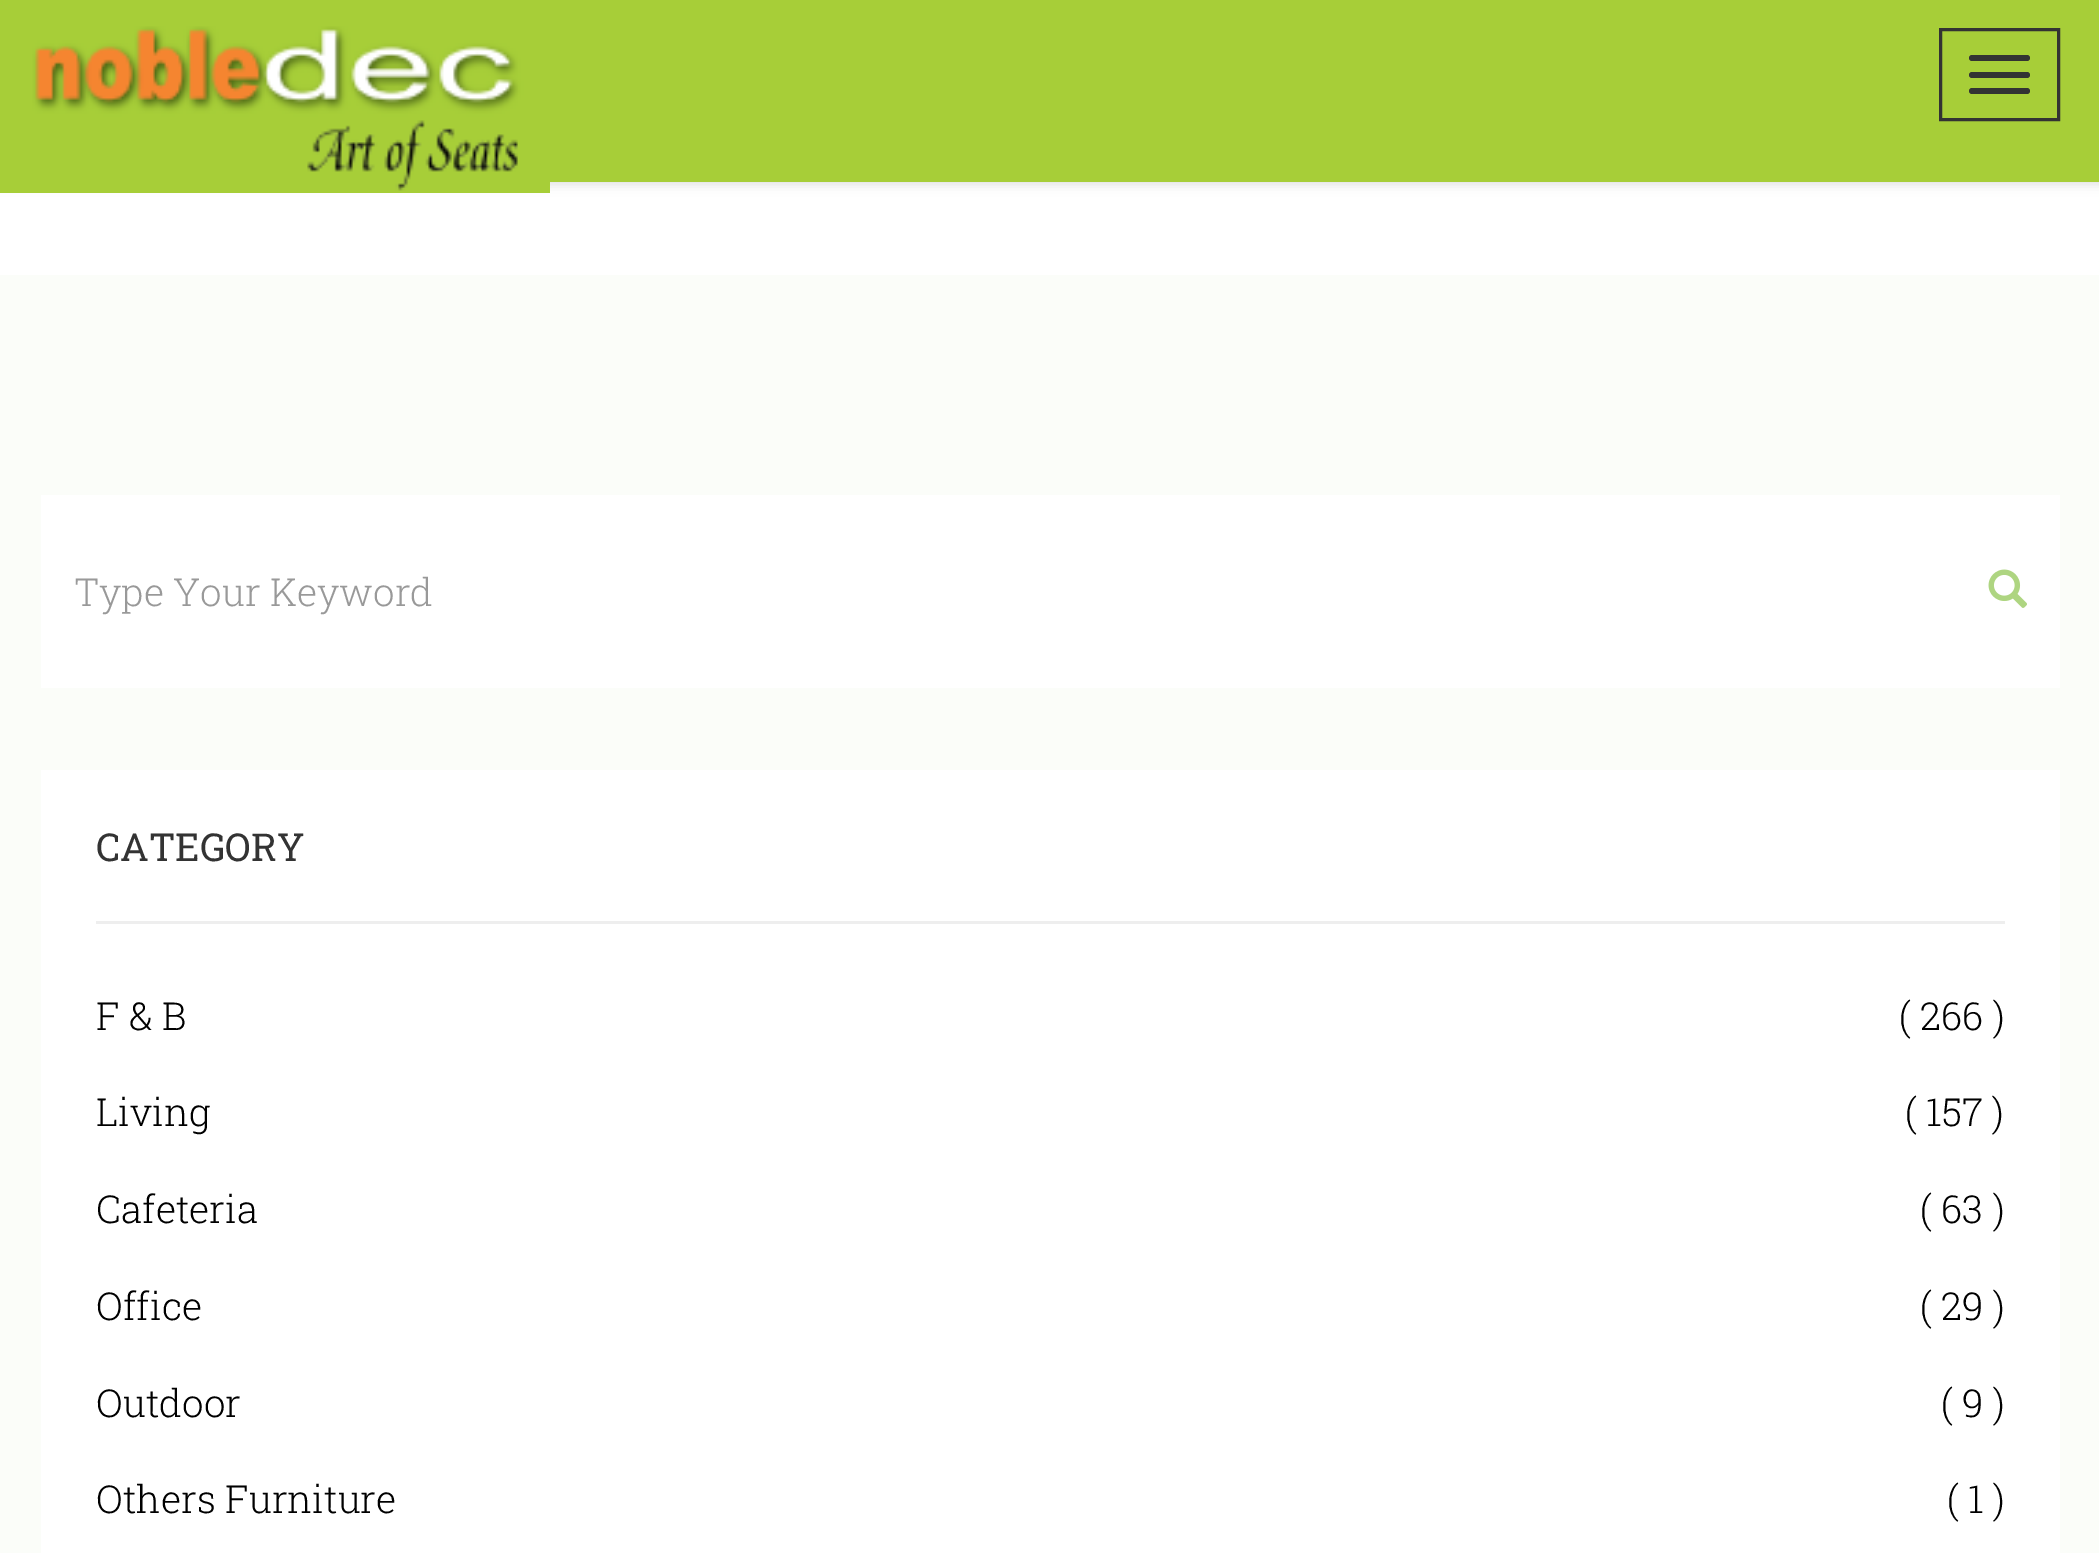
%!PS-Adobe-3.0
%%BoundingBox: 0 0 2099 1553
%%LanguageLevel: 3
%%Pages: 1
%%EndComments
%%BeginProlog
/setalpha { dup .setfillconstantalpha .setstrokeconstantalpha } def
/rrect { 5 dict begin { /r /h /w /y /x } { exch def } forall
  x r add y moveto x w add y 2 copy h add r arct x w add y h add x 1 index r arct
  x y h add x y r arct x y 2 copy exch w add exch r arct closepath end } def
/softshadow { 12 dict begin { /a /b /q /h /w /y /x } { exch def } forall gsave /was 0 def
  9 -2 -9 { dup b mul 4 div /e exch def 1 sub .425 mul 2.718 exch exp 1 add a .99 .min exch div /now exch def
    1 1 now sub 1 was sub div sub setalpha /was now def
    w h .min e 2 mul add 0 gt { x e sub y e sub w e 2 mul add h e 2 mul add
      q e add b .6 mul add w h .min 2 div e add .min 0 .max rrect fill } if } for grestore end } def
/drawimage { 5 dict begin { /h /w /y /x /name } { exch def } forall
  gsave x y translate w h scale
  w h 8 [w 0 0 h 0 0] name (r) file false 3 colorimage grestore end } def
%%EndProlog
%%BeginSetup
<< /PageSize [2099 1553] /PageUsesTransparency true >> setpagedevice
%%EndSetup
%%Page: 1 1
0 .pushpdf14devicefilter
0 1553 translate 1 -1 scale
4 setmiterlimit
1 setgray
0 0 2099 1553 rectfill
0.867 setgray
-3 -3 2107 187 0 5.5 1 softshadow
0.655 0.808 0.22 setrgbcolor
0 0 2099 182 rectfill
(images/1.raw) 0 26 550 167 drawimage
0.2 setgray
3 setlinewidth
1940.5 29.5 118 90 rectstroke
1969 55 61 6 3 rrect fill
1969 72 61 6 3 rrect fill
1969 88 61 6 3 rrect fill
0.984 0.992 0.976 setrgbcolor
0 275 2099 1278 rectfill
1 setgray
41 495 2019 193 rectfill
(images/2.raw) 1988 569 39 39 drawimage
41 770 2019 783 rectfill
0.933 setgray
96 921 1909 3 rectfill
/RobotoSlab-Light [38.5 0 0 -38.5 0 0] selectfont
0.6 setgray
74 606 moveto (Type Your Keyword) show
/RobotoSlab-Regular [38.5 0 0 -38.5 0 0] selectfont
0.2 setgray
96 861 moveto (CATEGORY) show
/RobotoSlab-Light [38.5 0 0 -38.5 0 0] selectfont
0 setgray
96 1030 moveto (F & B) show
1899 1030 moveto (\( 266 \)) show
96 1126 moveto (Living) show
1905 1126 moveto (\( 157 \)) show
96 1223 moveto (Cafeteria) show
1920 1223 moveto (\( 63 \)) show
96 1320 moveto (Office) show
1920 1320 moveto (\( 29 \)) show
96 1417 moveto (Outdoor) show
1941 1417 moveto (\( 9 \)) show
96 1513 moveto (Others Furniture) show
1947 1513 moveto (\( 1 \)) show
.poppdf14devicefilter showpage
%%EOF
